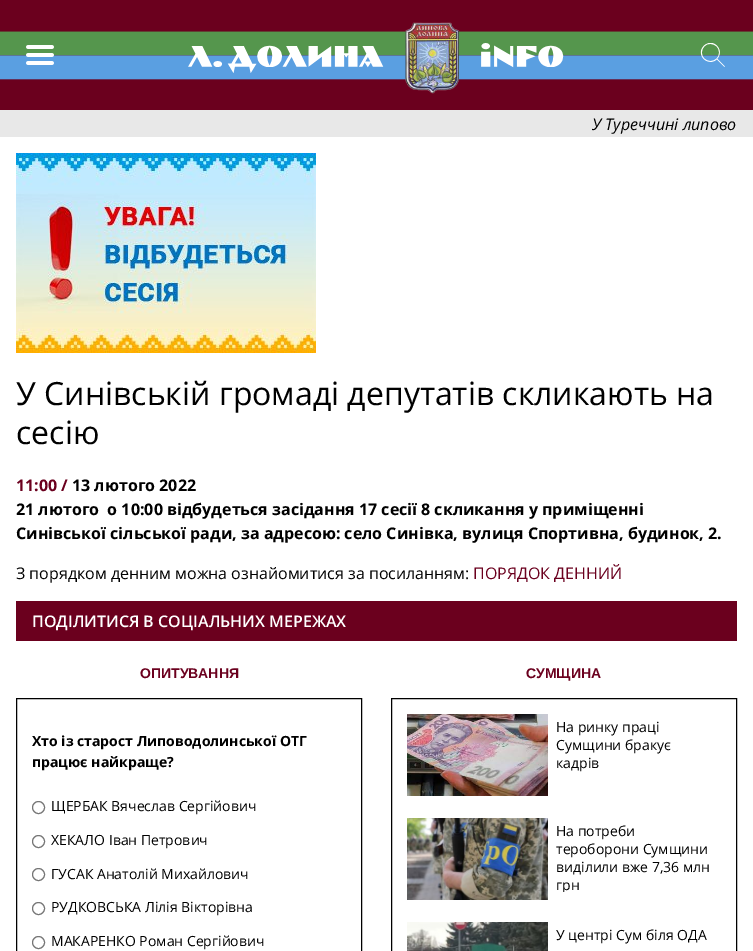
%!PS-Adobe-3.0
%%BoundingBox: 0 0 753 951
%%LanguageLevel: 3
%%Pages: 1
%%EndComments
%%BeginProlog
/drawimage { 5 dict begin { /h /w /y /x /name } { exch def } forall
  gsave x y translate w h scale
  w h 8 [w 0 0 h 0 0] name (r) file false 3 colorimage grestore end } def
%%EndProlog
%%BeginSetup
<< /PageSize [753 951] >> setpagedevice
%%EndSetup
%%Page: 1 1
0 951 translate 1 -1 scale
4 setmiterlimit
1 setgray
0 0 753 951 rectfill
0.42 0 0.118 setrgbcolor
0 0 753 110 rectfill
(images/1.raw) 0 22 753 72 drawimage
(images/2.raw) 26 45 28 20 drawimage
(images/3.raw) 700 43 25 24 drawimage
0.91 setgray
0 110 753 27 rectfill
(images/4.raw) 16 153 300 200 drawimage
0.42 0 0.118 setrgbcolor
16 601 721 40 rectfill
0 setgray
16.5 698.5 345 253 rectstroke
0.463 setgray
newpath 38.5 807.5 6 0 360 arc closepath stroke
newpath 38.5 841.5 6 0 360 arc closepath stroke
newpath 38.5 874.5 6 0 360 arc closepath stroke
newpath 38.5 908.5 6 0 360 arc closepath stroke
newpath 38.5 942.5 6 0 360 arc closepath stroke
0 setgray
391.5 698.5 345 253 rectstroke
(images/5.raw) 407 714 141 82 drawimage
(images/6.raw) 407 818 141 82 drawimage
(images/7.raw) 407 922 141 29 drawimage
/OpenSans-Italic [16 0 0 -16 0 0] selectfont
592 130 moveto (У Туреччині липово) show
/OpenSans-Regular [32 0 0 -32 0 0] selectfont
16 405 moveto (У Синівській громаді депутатів скликають на) show
16 444 moveto (сесію) show
/OpenSans-Bold [16 0 0 -16 0 0] selectfont
0.42 0 0.118 setrgbcolor
16 491 moveto (11:00 /) show
0 setgray
72 491 moveto (13 лютого 2022) show
16 515 moveto (21 лютого  о 10:00 відбудеться засідання 17 сесії 8 скликання у приміщенні) show
16 539 moveto (Синівської сільської ради, за адресою: село Синівка, вулиця Спортивна, будинок, 2.) show
/OpenSans-Regular [16 0 0 -16 0 0] selectfont
16 579 moveto (З порядком денним можна ознайомитися за посиланням:) show
0.42 0 0.118 setrgbcolor
473 579 moveto (ПОРЯДОК ДЕННИЙ) show
/OpenSans-SemiBold [16 0 0 -16 0 0] selectfont
1 setgray
32 627 moveto (ПОДІЛИТИСЯ В СОЦІАЛЬНИХ МЕРЕЖАХ) show
/LiberationSans-Bold [14 0 0 -14 0 0] selectfont
0.42 0 0.118 setrgbcolor
140 678 moveto (ОПИТУВАННЯ) show
/OpenSans-Bold [14 0 0 -14 0 0] selectfont
0 setgray
32 746 moveto (Хто із старост Липоводолинської ОТГ) show
32 767 moveto (працює найкраще?) show
/OpenSans-Regular [14 0 0 -14 0 0] selectfont
51 811 moveto (ЩЕРБАК Вячеслав Сергійович) show
51 845 moveto (ХЕКАЛО Іван Петрович) show
51 879 moveto (ГУСАК Анатолій Михайлович) show
51 912 moveto (РУДКОВСЬКА Лілія Вікторівна) show
51 946 moveto (МАКАРЕНКО Роман Сергійович) show
/LiberationSans-Bold [14 0 0 -14 0 0] selectfont
0.42 0 0.118 setrgbcolor
526 678 moveto (СУМЩИНА) show
/OpenSans-Regular [14 0 0 -14 0 0] selectfont
0 setgray
556 732 moveto (На ринку праці) show
556 750 moveto (Сумщини бракує) show
556 768 moveto (кадрів) show
556 836 moveto (На потреби) show
556 854 moveto (тероборони Сумщини) show
556 872 moveto (виділили вже 7,36 млн) show
gsave
556 822 157 70 rectclip
556 890 moveto (грн) show
grestore
556 940 moveto (У центрі Сум біля ОДА) show
showpage
%%EOF
